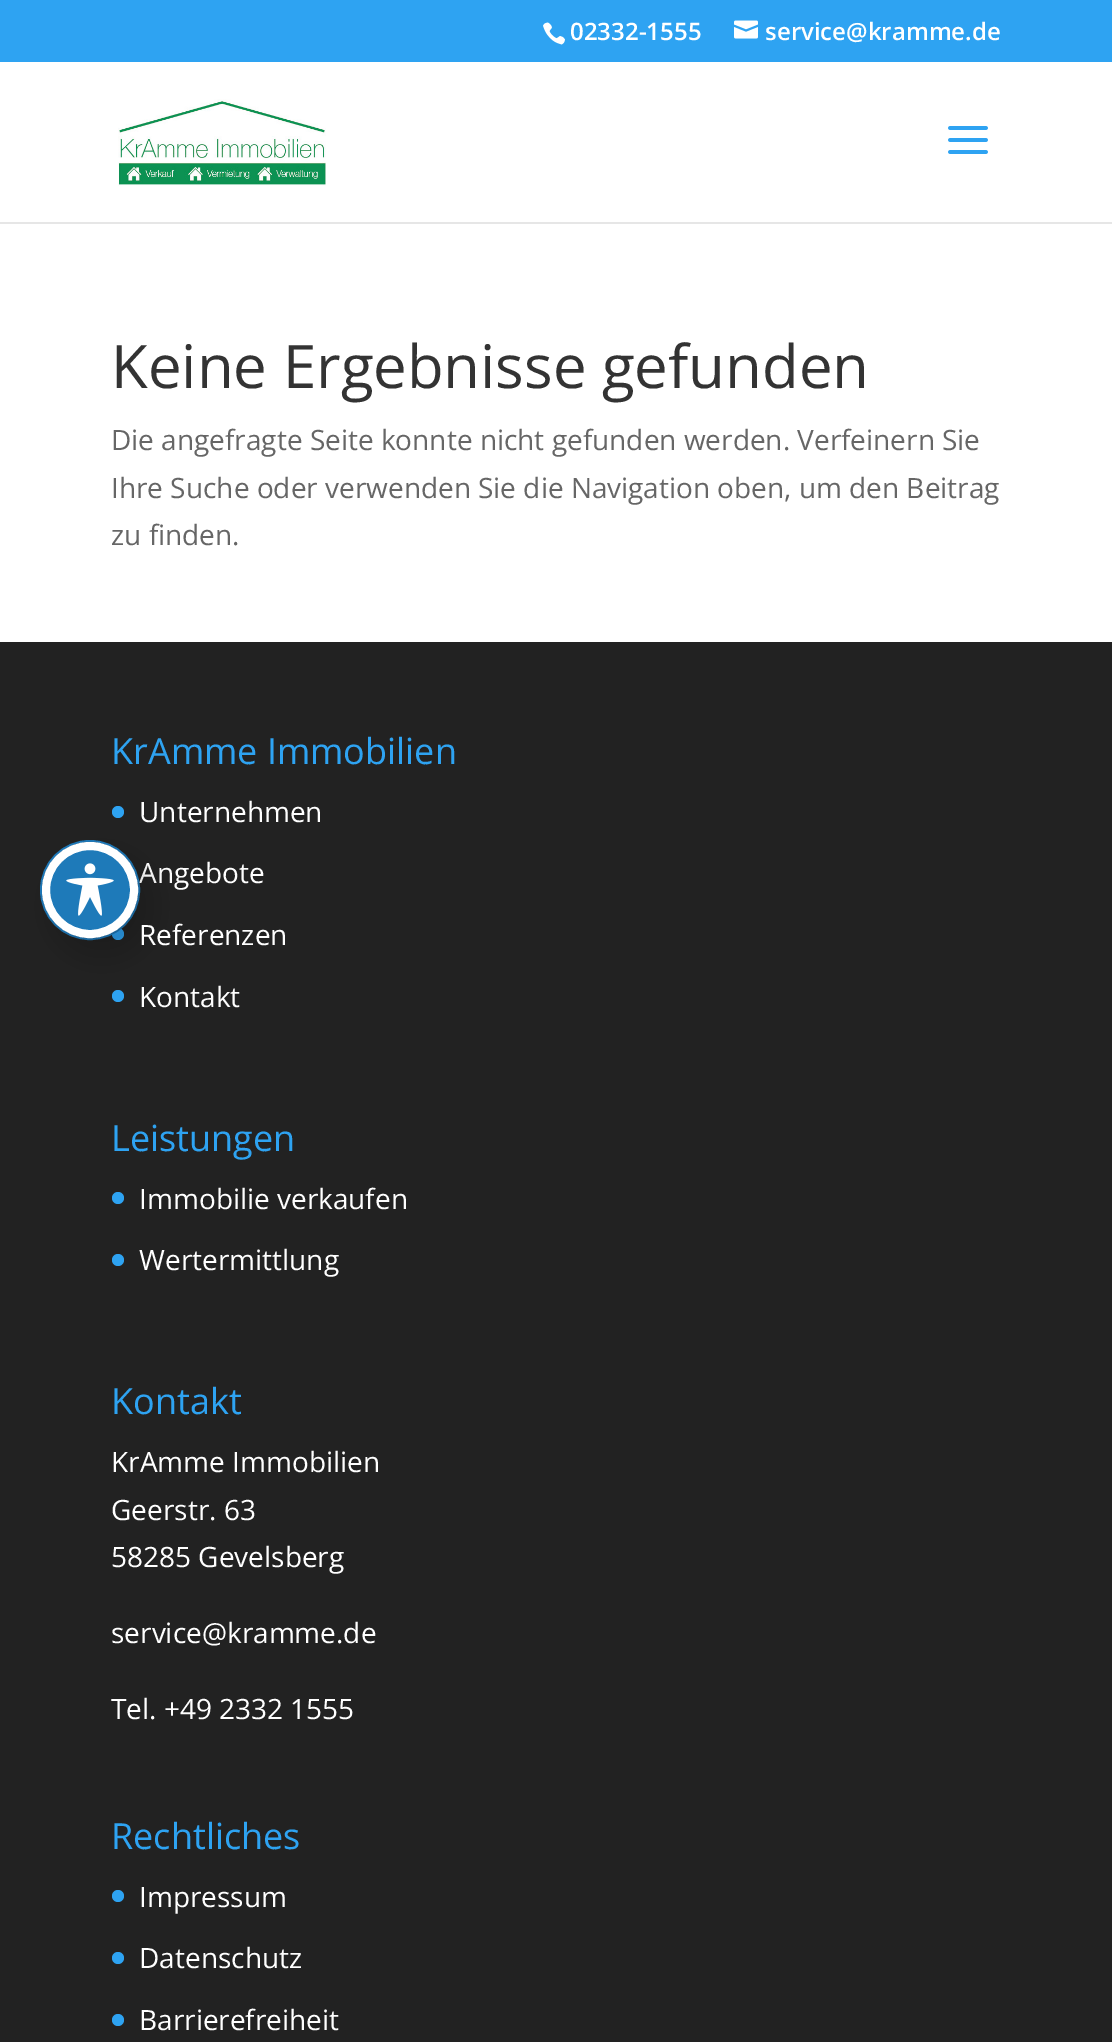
%!PS-Adobe-3.0
%%BoundingBox: 0 0 1112 2042
%%LanguageLevel: 3
%%Pages: 1
%%EndComments
%%BeginProlog
/setalpha { dup .setfillconstantalpha .setstrokeconstantalpha } def
/rrect { 5 dict begin { /r /h /w /y /x } { exch def } forall
  x r add y moveto x w add y 2 copy h add r arct x w add y h add x 1 index r arct
  x y h add x y r arct x y 2 copy exch w add exch r arct closepath end } def
/softshadow { 12 dict begin { /a /b /q /h /w /y /x } { exch def } forall gsave /was 0 def
  9 -2 -9 { dup b mul 4 div /e exch def 1 sub .425 mul 2.718 exch exp 1 add a .99 .min exch div /now exch def
    1 1 now sub 1 was sub div sub setalpha /was now def
    w h .min e 2 mul add 0 gt { x e sub y e sub w e 2 mul add h e 2 mul add
      q e add b .6 mul add w h .min 2 div e add .min 0 .max rrect fill } if } for grestore end } def
/drawimage { 5 dict begin { /h /w /y /x /name } { exch def } forall
  gsave x y translate w h scale
  w h 8 [w 0 0 h 0 0] name (r) file false 3 colorimage grestore end } def
%%EndProlog
%%BeginSetup
<< /PageSize [1112 2042] /PageUsesTransparency true >> setpagedevice
%%EndSetup
%%Page: 1 1
0 .pushpdf14devicefilter
0 2042 translate 1 -1 scale
4 setmiterlimit
1 setgray
0 0 1112 2042 rectfill
0.18 0.639 0.949 setrgbcolor
0 0 1112 62 rectfill
(images/2.raw) 543 22 22 23 drawimage
(images/3.raw) 734 20 24 19 drawimage
0.902 setgray
0 222 1112 2 rectfill
(images/4.raw) 118 99 208 87 drawimage
(images/5.raw) 948 126 40 28 drawimage
0.133 setgray
0 642 1112 1400 rectfill
0.18 0.639 0.949 setrgbcolor
newpath 118 812 6 0 360 arc closepath fill
newpath 118 934 6 0 360 arc closepath fill
newpath 118 996 6 0 360 arc closepath fill
newpath 118 1198 6 0 360 arc closepath fill
newpath 118 1260 6 0 360 arc closepath fill
newpath 118 1896 6 0 360 arc closepath fill
newpath 118 1958 6 0 360 arc closepath fill
newpath 118 2020 6 0 360 arc closepath fill
/OpenSans-SemiBold [24 0 0 -24 0 0] selectfont
1 setgray
570 40 moveto (02332-1555) show
765 40 moveto (service@kramme.de) show
/OpenSans-Regular [60 0 0 -60 0 0] selectfont
0.2 setgray
111 388 moveto (Keine Ergebnisse gefunden) show
/OpenSans-Regular [28 0 0 -28 0 0] selectfont
0.4 setgray
111 450 moveto (Die angefragte Seite konnte nicht gefunden werden. Verfeinern Sie) show
111 498 moveto (Ihre Suche oder verwenden Sie die Navigation oben, um den Beitrag) show
111 545 moveto (zu finden.) show
/OpenSans-Regular [36 0 0 -36 0 0] selectfont
0.18 0.639 0.949 setrgbcolor
111 764 moveto (KrAmme Immobilien) show
/OpenSans-Regular [28 0 0 -28 0 0] selectfont
1 setgray
139 822 moveto (Unternehmen) show
139 883 moveto (Angebote) show
0.118 0.478 0.725 setrgbcolor
2 setlinewidth
newpath 90 890 49 0 360 arc closepath stroke
0 setgray
54 858 96 96 48 16 0.2 softshadow
0.118 0.478 0.725 setrgbcolor
newpath 90 890 44 0 360 arc closepath gsave fill grestore
1 setgray
8 setlinewidth
stroke
(images/1.raw) 66 863 48 53 drawimage
139 945 moveto (Referenzen) show
139 1007 moveto (Kontakt) show
/OpenSans-Regular [36 0 0 -36 0 0] selectfont
0.18 0.639 0.949 setrgbcolor
111 1151 moveto (Leistungen) show
/OpenSans-Regular [28 0 0 -28 0 0] selectfont
1 setgray
139 1209 moveto (Immobilie verkaufen) show
139 1270 moveto (Wertermittlung) show
/OpenSans-Regular [36 0 0 -36 0 0] selectfont
0.18 0.639 0.949 setrgbcolor
111 1414 moveto (Kontakt) show
/OpenSans-Regular [28 0 0 -28 0 0] selectfont
1 setgray
111 1472 moveto (KrAmme Immobilien) show
111 1520 moveto (Geerstr. 63) show
111 1567 moveto (58285 Gevelsberg) show
111 1643 moveto (service@kramme.de) show
111 1719 moveto (Tel. +49 2332 1555) show
/OpenSans-Regular [36 0 0 -36 0 0] selectfont
0.18 0.639 0.949 setrgbcolor
111 1849 moveto (Rechtliches) show
/OpenSans-Regular [28 0 0 -28 0 0] selectfont
1 setgray
139 1907 moveto (Impressum) show
139 1968 moveto (Datenschutz) show
139 2030 moveto (Barrierefreiheit) show
.poppdf14devicefilter showpage
%%EOF
